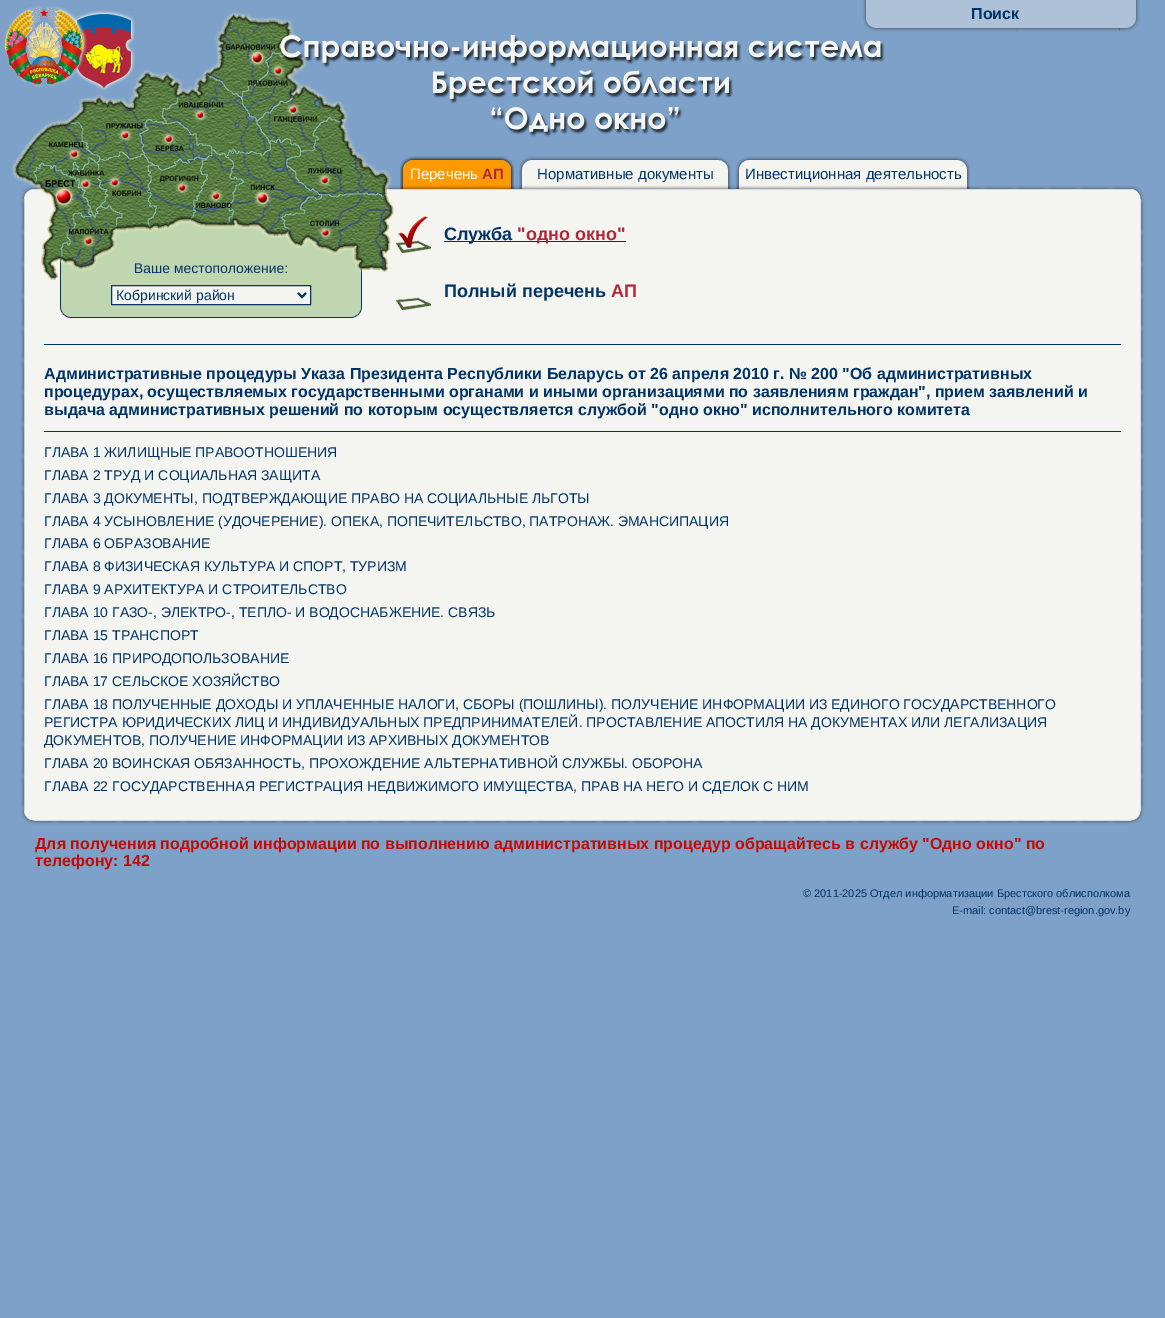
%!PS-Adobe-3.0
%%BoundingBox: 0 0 1165 1318
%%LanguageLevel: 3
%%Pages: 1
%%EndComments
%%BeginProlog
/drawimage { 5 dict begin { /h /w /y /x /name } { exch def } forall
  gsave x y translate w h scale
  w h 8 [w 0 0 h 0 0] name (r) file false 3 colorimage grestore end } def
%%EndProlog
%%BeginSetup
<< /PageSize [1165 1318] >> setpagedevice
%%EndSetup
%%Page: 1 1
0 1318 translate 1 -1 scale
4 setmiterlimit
0.49 0.631 0.788 setrgbcolor
0 0 1165 1318 rectfill
(images/1.raw) 862 0 278 32 drawimage
(images/7.raw) 34 185 1097 14 drawimage
(images/3.raw) 400 156 114 33 drawimage
(images/4.raw) 519 156 212 33 drawimage
(images/5.raw) 736 156 234 33 drawimage
(images/6.raw) 20 185 14 14 drawimage
(images/8.raw) 1131 185 13 14 drawimage
(images/9.raw) 21 199 13 612 drawimage
0.957 0.957 0.945 setrgbcolor
34 199 1097 612 rectfill
0 0.2 0.4 setrgbcolor
44 344 1077 1 rectfill
(images/11.raw) 396 240 35 13 drawimage
(images/10.raw) 398 215 30 33 drawimage
444 241 182 1 rectfill
(images/11.raw) 396 297 35 13 drawimage
44 431 1077 1 rectfill
(images/12.raw) 1131 199 14 612 drawimage
(images/13.raw) 20 811 14 13 drawimage
(images/14.raw) 34 811 1097 14 drawimage
(images/15.raw) 1131 811 13 13 drawimage
(images/16.raw) 4 3 132 92 drawimage
(images/18.raw) 60 218 302 100 drawimage
0.957 0.957 0.945 setrgbcolor
newpath 111.5 285.5 moveto 310.5 285.5 lineto 310.5 304.5 lineto 111.5 304.5 lineto closepath gsave fill grestore
0 0.2 0.4 setrgbcolor
stroke
2 setlinewidth
newpath 298 293 moveto 302 297 lineto 306 293 lineto stroke
/LiberationSans-Bold [16 0 0 -16 0 0] selectfont
971 19 moveto (Поиск) show
/LiberationSans-Regular [15 0 0 -15 0 0] selectfont
1 setgray
410 179 moveto (Перечень) show
/LiberationSans-Bold [15 0 0 -15 0 0] selectfont
0.694 0.157 0.235 setrgbcolor
482 179 moveto (АП) show
/LiberationSans-Regular [15 0 0 -15 0 0] selectfont
0 0.2 0.4 setrgbcolor
537 179 moveto (Нормативные документы) show
745 179 moveto (Инвестиционная деятельность) show
/LiberationSans-Bold [18 0 0 -18 0 0] selectfont
444 240 moveto (Служба) show
0.694 0.157 0.235 setrgbcolor
517 240 moveto ("одно окно") show
0 0.2 0.4 setrgbcolor
444 297 moveto (Полный перечень) show
0.694 0.157 0.235 setrgbcolor
611 297 moveto (АП) show
/LiberationSans-Bold [16 0 0 -16 0 0] selectfont
0 0.2 0.4 setrgbcolor
44 379 moveto (Административные процедуры Указа Президента Республики Беларусь от 26 апреля 2010 г. № 200 "Об административных) show
44 397 moveto (процедурах, осуществляемых государственными органами и иными организациями по заявлениям граждан", прием заявлений и) show
44 415 moveto (выдача административных решений по которым осуществляется службой "одно окно" исполнительного комитета) show
/LiberationSans-Regular [14 0 0 -14 0 0] selectfont
44 457 moveto (ГЛАВА 1 ЖИЛИЩНЫЕ ПРАВООТНОШЕНИЯ) show
44 480 moveto (ГЛАВА 2 ТРУД И СОЦИАЛЬНАЯ ЗАЩИТА) show
44 503 moveto (ГЛАВА 3 ДОКУМЕНТЫ, ПОДТВЕРЖДАЮЩИЕ ПРАВО НА СОЦИАЛЬНЫЕ ЛЬГОТЫ) show
44 526 moveto (ГЛАВА 4 УСЫНОВЛЕНИЕ \(УДОЧЕРЕНИЕ\). ОПЕКА, ПОПЕЧИТЕЛЬСТВО, ПАТРОНАЖ. ЭМАНСИПАЦИЯ) show
44 548 moveto (ГЛАВА 6 ОБРАЗОВАНИЕ) show
44 571 moveto (ГЛАВА 8 ФИЗИЧЕСКАЯ КУЛЬТУРА И СПОРТ, ТУРИЗМ) show
44 594 moveto (ГЛАВА 9 АРХИТЕКТУРА И СТРОИТЕЛЬСТВО) show
44 617 moveto (ГЛАВА 10 ГАЗО-, ЭЛЕКТРО-, ТЕПЛО- И ВОДОСНАБЖЕНИЕ. СВЯЗЬ) show
44 640 moveto (ГЛАВА 15 ТРАНСПОРТ) show
44 663 moveto (ГЛАВА 16 ПРИРОДОПОЛЬЗОВАНИЕ) show
44 686 moveto (ГЛАВА 17 СЕЛЬСКОЕ ХОЗЯЙСТВО) show
44 709 moveto (ГЛАВА 18 ПОЛУЧЕННЫЕ ДОХОДЫ И УПЛАЧЕННЫЕ НАЛОГИ, СБОРЫ \(ПОШЛИНЫ\). ПОЛУЧЕНИЕ ИНФОРМАЦИИ ИЗ ЕДИНОГО ГОСУДАРСТВЕННОГО) show
44 727 moveto (РЕГИСТРА ЮРИДИЧЕСКИХ ЛИЦ И ИНДИВИДУАЛЬНЫХ ПРЕДПРИНИМАТЕЛЕЙ. ПРОСТАВЛЕНИЕ АПОСТИЛЯ НА ДОКУМЕНТАХ ИЛИ ЛЕГАЛИЗАЦИЯ) show
44 745 moveto (ДОКУМЕНТОВ, ПОЛУЧЕНИЕ ИНФОРМАЦИИ ИЗ АРХИВНЫХ ДОКУМЕНТОВ) show
44 768 moveto (ГЛАВА 20 ВОИНСКАЯ ОБЯЗАННОСТЬ, ПРОХОЖДЕНИЕ АЛЬТЕРНАТИВНОЙ СЛУЖБЫ. ОБОРОНА) show
44 791 moveto (ГЛАВА 22 ГОСУДАРСТВЕННАЯ РЕГИСТРАЦИЯ НЕДВИЖИМОГО ИМУЩЕСТВА, ПРАВ НА НЕГО И СДЕЛОК С НИМ) show
134 273 moveto (Ваше местоположение:) show
(images/17.raw) 12 12 384 270 drawimage
(images/2.raw) 280 35 605 102 drawimage
116 300 moveto (Кобринский район) show
/LiberationSans-Bold [16 0 0 -16 0 0] selectfont
0.776 0.039 0.004 setrgbcolor
35 849 moveto (Для получения подробной информации по выполнению административных процедур обращайтесь в службу "Одно окно" по) show
35 866 moveto (телефону: 142) show
/LiberationSans-Regular [11 0 0 -11 0 0] selectfont
0 0.2 0.4 setrgbcolor
803 897 moveto (© 2011-2025 Отдел информатизации Брестского облисполкома) show
952 914 moveto (E-mail: contact@brest-region.gov.by) show
showpage
%%EOF
